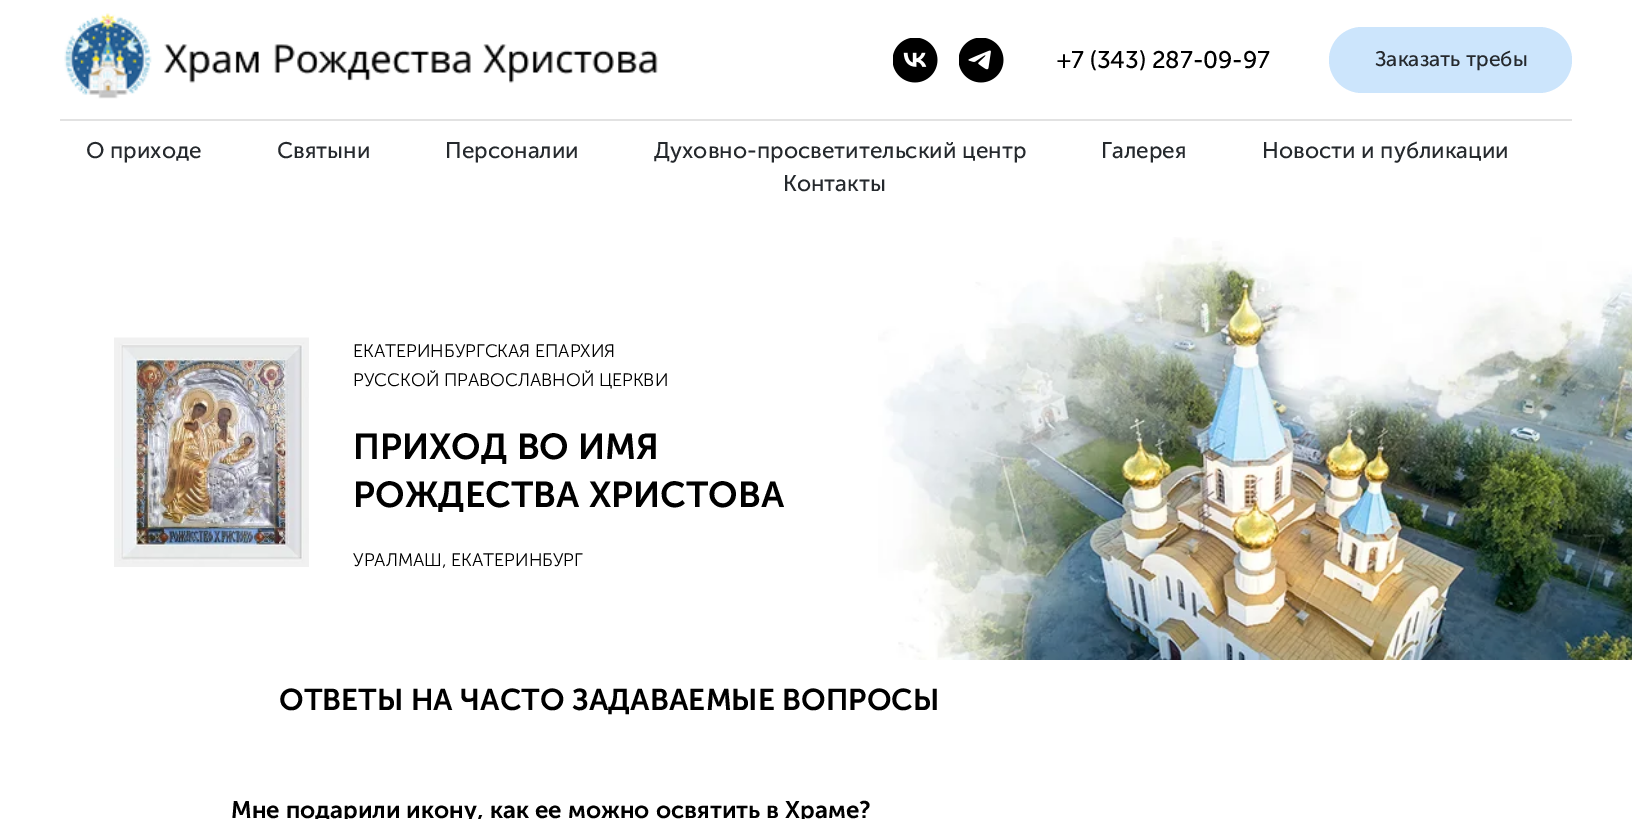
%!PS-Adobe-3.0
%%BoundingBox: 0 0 1632 819
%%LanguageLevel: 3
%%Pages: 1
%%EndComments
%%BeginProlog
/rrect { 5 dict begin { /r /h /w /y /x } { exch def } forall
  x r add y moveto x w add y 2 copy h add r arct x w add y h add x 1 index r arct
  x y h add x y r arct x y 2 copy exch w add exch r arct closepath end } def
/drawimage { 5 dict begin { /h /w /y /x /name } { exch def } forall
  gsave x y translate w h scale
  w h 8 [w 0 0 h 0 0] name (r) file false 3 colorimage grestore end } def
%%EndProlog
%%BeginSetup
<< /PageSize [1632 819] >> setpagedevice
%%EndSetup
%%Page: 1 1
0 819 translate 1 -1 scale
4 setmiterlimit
1 setgray
0 0 1632 819 rectfill
(images/1.raw) 64 13 594 86 drawimage
(images/2.raw) 893 38 45 45 drawimage
(images/3.raw) 959 38 45 45 drawimage
0.8 0.898 0.988 setrgbcolor
1329 27 243 66 33 rrect fill
0.886 setgray
60 119 1512 2 rectfill
(images/4.raw) 114 337 195 230 drawimage
(images/5.raw) 878 237 754 423 drawimage
/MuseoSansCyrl-Regular [24 0 0 -24 0 0] selectfont
0 setgray
1057 68 moveto (+7 \(343\) 287-09-97) show
/MuseoSansCyrl-Regular [21 0 0 -21 0 0] selectfont
0.145 0.161 0.176 setrgbcolor
1375 66 moveto (Заказать требы) show
/MuseoSansCyrl-Regular [22.5 0 0 -22.5 0 0] selectfont
86 158 moveto (О приходе) show
277 158 moveto (Святыни) show
445 158 moveto (Персоналии) show
654 158 moveto (Духовно-просветительский центр) show
1101 158 moveto (Галерея) show
1262 158 moveto (Новости и публикации) show
783 191 moveto (Контакты) show
/MuseoSansCyrl-Light [18 0 0 -18 0 0] selectfont
0 setgray
353 357 moveto (ЕКАТЕРИНБУРГСКАЯ ЕПАРХИЯ) show
353 386 moveto (РУССКОЙ ПРАВОСЛАВНОЙ ЦЕРКВИ) show
/MuseoSansCyrl-SemiBold [36 0 0 -36 0 0] selectfont
353 459 moveto (ПРИХОД ВО ИМЯ) show
353 507 moveto (РОЖДЕСТВА ХРИСТОВА) show
/MuseoSansCyrl-Light [18 0 0 -18 0 0] selectfont
353 566 moveto (УРАЛМАШ, ЕКАТЕРИНБУРГ) show
/MuseoSansCyrl-SemiBold [30 0 0 -30 0 0] selectfont
279 710 moveto (ОТВЕТЫ НА ЧАСТО ЗАДАВАЕМЫЕ ВОПРОСЫ) show
/MuseoSansCyrl-SemiBold [24 0 0 -24 0 0] selectfont
231 818 moveto (Мне подарили икону, как ее можно освятить в Храме?) show
showpage
%%EOF
